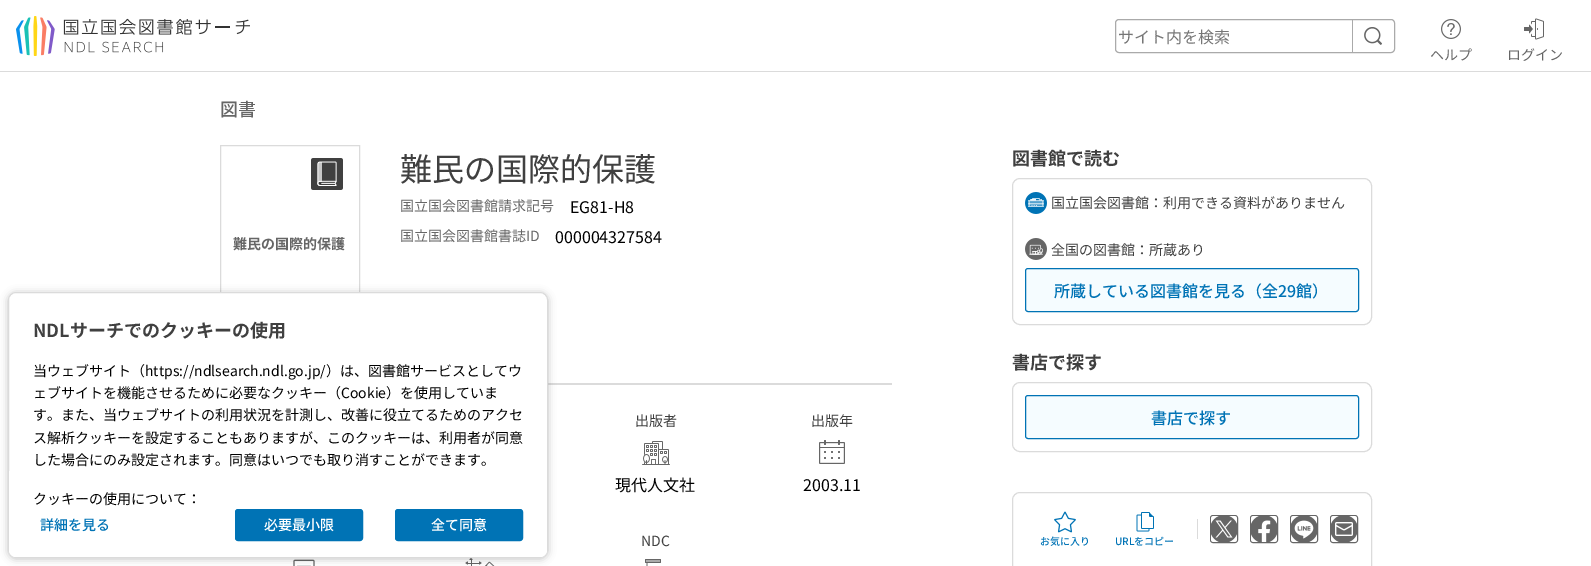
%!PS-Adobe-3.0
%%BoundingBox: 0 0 1591 566
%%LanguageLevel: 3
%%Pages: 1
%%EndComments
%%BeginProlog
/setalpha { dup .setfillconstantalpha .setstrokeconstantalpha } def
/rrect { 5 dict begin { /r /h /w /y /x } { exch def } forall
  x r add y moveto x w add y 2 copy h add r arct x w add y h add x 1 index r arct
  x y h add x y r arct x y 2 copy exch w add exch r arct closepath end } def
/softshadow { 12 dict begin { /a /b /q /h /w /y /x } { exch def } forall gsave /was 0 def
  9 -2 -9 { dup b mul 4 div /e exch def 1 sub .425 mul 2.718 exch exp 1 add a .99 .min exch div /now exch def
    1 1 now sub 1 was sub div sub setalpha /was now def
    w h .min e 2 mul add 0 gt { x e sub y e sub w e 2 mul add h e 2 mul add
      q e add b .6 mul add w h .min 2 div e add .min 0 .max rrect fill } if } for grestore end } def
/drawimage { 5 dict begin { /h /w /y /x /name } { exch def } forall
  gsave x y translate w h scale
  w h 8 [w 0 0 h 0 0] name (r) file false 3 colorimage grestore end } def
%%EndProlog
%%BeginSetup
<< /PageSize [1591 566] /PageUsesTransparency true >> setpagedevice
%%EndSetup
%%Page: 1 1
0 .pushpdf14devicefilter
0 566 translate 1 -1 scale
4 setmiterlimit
1 setgray
0 0 1591 566 rectfill
0.859 setgray
0 71 1591 1 rectfill
(images/1.raw) 16 16 234 40 drawimage
0.667 setgray
1115.5 19.5 279 33 3.5 rrect stroke
1352 19 1 34 rectfill
(images/2.raw) 1364 27 18 18 drawimage
(images/3.raw) 1441 19 20 20 drawimage
(images/4.raw) 1524 18 20 22 drawimage
0.859 setgray
220.5 145.5 139 197 rectstroke
(images/5.raw) 311 158 32 32 drawimage
548 383 344 2 rectfill
(images/6.raw) 642 441 28 24 drawimage
(images/7.raw) 819 440 26 24 drawimage
(images/8.raw) 645 559 16 7 drawimage
(images/9.raw) 293 559 22 7 drawimage
(images/10.raw) 465 558 30 8 drawimage
1012.5 178.5 359 146 7.5 rrect stroke
(images/11.raw) 1025 192 22 22 drawimage
(images/12.raw) 1025 238 22 22 drawimage
0.961 0.988 1 setrgbcolor
1025.5 268.5 333 43 2.5 rrect gsave fill grestore
0 0.451 0.71 setrgbcolor
stroke
0.859 setgray
1012.5 382.5 359 69 7.5 rrect stroke
0.961 0.988 1 setrgbcolor
1025.5 395.5 333 43 2.5 rrect gsave fill grestore
0 0.451 0.71 setrgbcolor
stroke
0.859 setgray
1012.5 492.5 359 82 7.5 rrect stroke
1197 519 1 20 rectfill
0.4 setgray
1210.5 515.5 27 27 2.5 rrect stroke
(images/13.raw) 1211 516 26 26 drawimage
1250.5 515.5 27 27 2.5 rrect stroke
(images/14.raw) 1251 516 26 26 drawimage
1290.5 515.5 27 27 2.5 rrect stroke
(images/15.raw) 1291 516 26 26 drawimage
1330.5 515.5 27 27 2.5 rrect stroke
(images/16.raw) 1331 516 26 26 drawimage
(images/17.raw) 1054 511 22 22 drawimage
(images/18.raw) 1136 512 18 20 drawimage
0 setgray
8 293 540 266 8 4 0.24 softshadow
1 setgray
8.5 292.5 539 265 7.5 rrect gsave fill grestore
0.859 setgray
stroke
1 setgray
newpath 9 471 moveto 547 471 lineto 547 550 lineto 547 554 544 557 540 557 curveto 16 557 lineto 12 557 9 554 9 550 curveto closepath fill
0 0.451 0.71 setrgbcolor
235.5 509.5 127 31 2.5 rrect gsave fill grestore
stroke
395.5 509.5 127 31 2.5 rrect gsave fill grestore
stroke
/NotoSansJP-Regular [16 0 0 -16 0 0] selectfont
0.463 setgray
1118 43 moveto (サイト内を検索) show
/NotoSansJP-Regular [14 0 0 -14 0 0] selectfont
0.4 setgray
1430 60 moveto (ヘルプ) show
1507 60 moveto (ログイン) show
/NotoSansJP-Medium [18 0 0 -18 0 0] selectfont
220 116 moveto (図書) show
/NotoSansJP-Bold [14 0 0 -14 0 0] selectfont
233 249 moveto (難民の国際的保護) show
/NotoSansJP-Regular [32 0 0 -32 0 0] selectfont
0.251 setgray
400 181 moveto (難民の国際的保護) show
/NotoSansJP-Regular [14 0 0 -14 0 0] selectfont
0.4 setgray
400 211 moveto (国立国会図書館請求記号) show
/NotoSansJP-Regular [16 0 0 -16 0 0] selectfont
0 setgray
570 213 moveto (EG81-H8) show
/NotoSansJP-Regular [14 0 0 -14 0 0] selectfont
0.4 setgray
400 241 moveto (国立国会図書館書誌ID) show
/NotoSansJP-Regular [16 0 0 -16 0 0] selectfont
0 setgray
555 243 moveto (000004327584) show
/NotoSansJP-Regular [14 0 0 -14 0 0] selectfont
0.251 setgray
635 426 moveto (出版者) show
/NotoSansJP-Regular [16 0 0 -16 0 0] selectfont
0 setgray
615 491 moveto (現代人文社) show
/NotoSansJP-Regular [14 0 0 -14 0 0] selectfont
0.251 setgray
811 426 moveto (出版年) show
/NotoSansJP-Regular [16 0 0 -16 0 0] selectfont
0 setgray
803 491 moveto (2003.11) show
/NotoSansJP-Regular [14 0 0 -14 0 0] selectfont
0.251 setgray
641 546 moveto (NDC) show
/NotoSansJP-Bold [18 0 0 -18 0 0] selectfont
1012 165 moveto (図書館で読む) show
/NotoSansJP-Regular [14 0 0 -14 0 0] selectfont
1051 208 moveto (国立国会図書館：利用できる資料がありません) show
1051 255 moveto (全国の図書館：所蔵あり) show
/NotoSansJP-Medium [16 0 0 -16 0 0] selectfont
0 0.451 0.71 setrgbcolor
1054 297 moveto (所蔵している図書館を見る（全29館）) show
/NotoSansJP-Bold [18 0 0 -18 0 0] selectfont
0.251 setgray
1012 369 moveto (書店で探す) show
/NotoSansJP-Medium [16 0 0 -16 0 0] selectfont
0 0.451 0.71 setrgbcolor
1151 424 moveto (書店で探す) show
/NotoSansJP-Medium [10 0 0 -10 0 0] selectfont
1040 545 moveto (お気に入り) show
1115 545 moveto (URLをコピー) show
/NotoSansJP-Bold [18 0 0 -18 0 0] selectfont
0.251 setgray
33 337 moveto (NDLサーチでのクッキーの使用) show
/NotoSansJP-Regular [14 0 0 -14 0 0] selectfont
0 setgray
33 376 moveto (当ウェブサイト（https://ndlsearch.ndl.go.jp/）は、図書館サービスとしてウ) show
33 398 moveto (ェブサイトを機能させるために必要なクッキー（Cookie）を使用していま) show
33 420 moveto (す。また、当ウェブサイトの利用状況を計測し、改善に役立てるためのアクセ) show
33 443 moveto (ス解析クッキーを設定することもありますが、このクッキーは、利用者が同意) show
33 465 moveto (した場合にのみ設定されます。同意はいつでも取り消すことができます。) show
33 504 moveto (クッキーの使用について：) show
/NotoSansJP-Medium [14 0 0 -14 0 0] selectfont
0 0.451 0.71 setrgbcolor
40 530 moveto (詳細を見る) show
1 setgray
264 530 moveto (必要最小限) show
431 530 moveto (全て同意) show
.poppdf14devicefilter showpage
%%EOF
